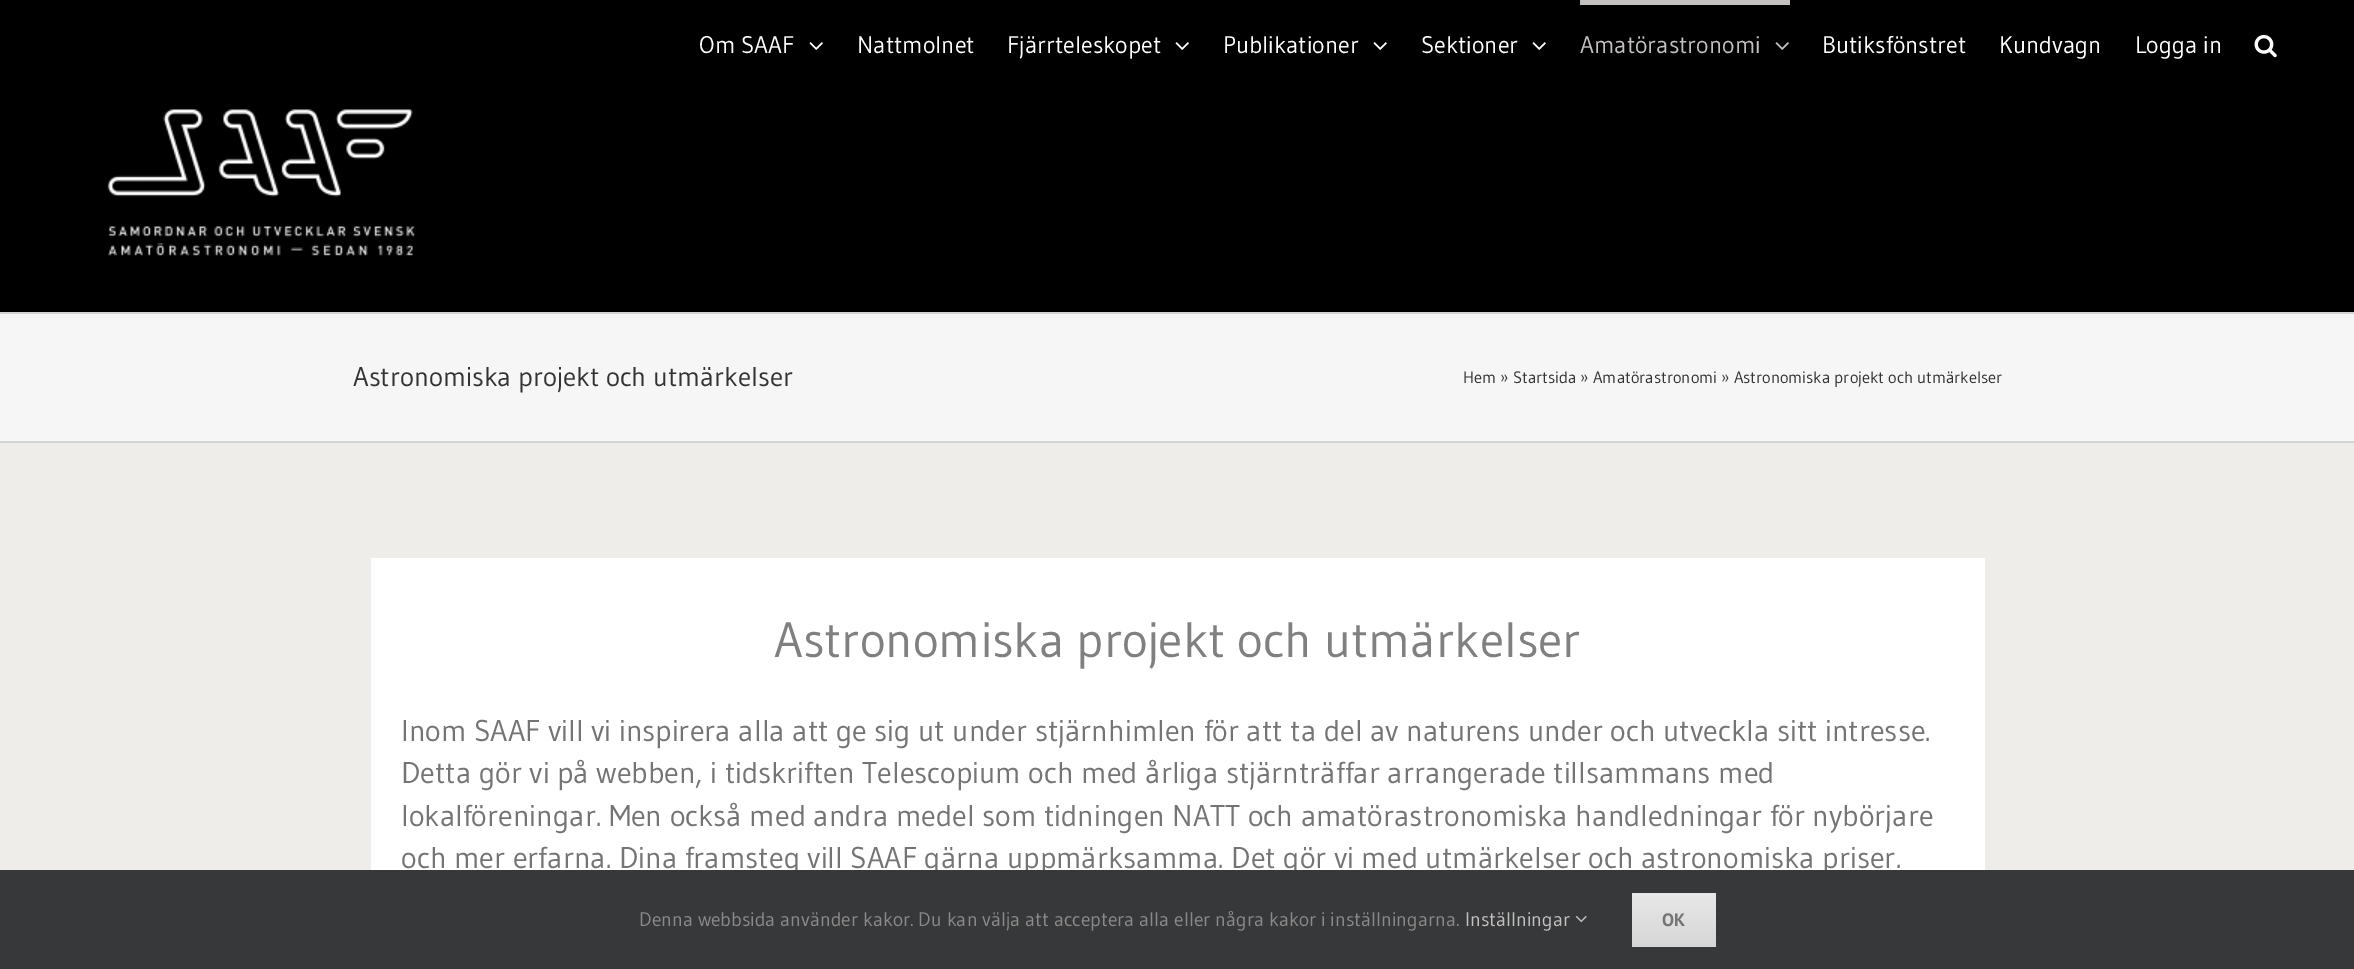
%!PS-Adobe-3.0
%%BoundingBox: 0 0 2354 969
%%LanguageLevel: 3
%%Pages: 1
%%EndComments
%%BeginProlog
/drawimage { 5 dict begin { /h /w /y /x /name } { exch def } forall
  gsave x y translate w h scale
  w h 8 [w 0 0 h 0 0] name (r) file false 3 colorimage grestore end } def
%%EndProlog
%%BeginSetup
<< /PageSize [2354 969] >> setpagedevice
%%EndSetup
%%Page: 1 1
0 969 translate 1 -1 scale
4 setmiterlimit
0.933 0.929 0.914 setrgbcolor
0 0 2354 969 rectfill
0 setgray
0 0 2354 312 rectfill
(images/1.raw) 809 42 14 8 drawimage
(images/1.raw) 1175 42 14 8 drawimage
(images/1.raw) 1373 42 14 8 drawimage
(images/1.raw) 1532 42 14 8 drawimage
0.769 0.753 0.753 setrgbcolor
1580 0 210 5 rectfill
(images/2.raw) 1775 42 14 8 drawimage
(images/3.raw) 2254 34 23 24 drawimage
(images/4.raw) 107 108 308 148 drawimage
0.965 setgray
0 314 2354 127 rectfill
0.824 0.827 0.831 setrgbcolor
0 312 2354 2 rectfill
0 441 2354 2 rectfill
1 setgray
371 558 1614 312 rectfill
/Gudea-Regular [24 0 0 -24 0 0] selectfont
699 53 moveto (Om SAAF) show
857 53 moveto (Nattmolnet) show
1007 53 moveto (Fjärrteleskopet) show
1223 53 moveto (Publikationer) show
1421 53 moveto (Sektioner) show
0.769 0.753 0.753 setrgbcolor
1580 53 moveto (Amatörastronomi) show
1 setgray
1822 53 moveto (Butiksfönstret) show
1999 53 moveto (Kundvagn) show
2135 53 moveto (Logga in) show
/Gudea-Regular [27 0 0 -27 0 0] selectfont
0.2 setgray
353 386 moveto (Astronomiska projekt och utmärkelser) show
/Gudea-Regular [16.5 0 0 -16.5 0 0] selectfont
1463 383 moveto (Hem » Startsida » Amatörastronomi » Astronomiska projekt och utmärkelser) show
/Gudea-Regular [49.5 0 0 -49.5 0 0] selectfont
0.502 setgray
774 657 moveto (Astronomiska projekt och utmärkelser) show
/Gudea-Regular [30 0 0 -30 0 0] selectfont
0.455 setgray
401 741 moveto (Inom SAAF vill vi inspirera alla att ge sig ut under stjärnhimlen för att ta del av naturens under och utveckla sitt intresse.) show
401 783 moveto (Detta gör vi på webben, i tidskriften Telescopium och med årliga stjärnträffar arrangerade tillsammans med) show
401 826 moveto (lokalföreningar. Men också med andra medel som tidningen NATT och amatörastronomiska handledningar för nybörjare) show
401 868 moveto (och mer erfarna. Dina framsteg vill SAAF gärna uppmärksamma. Det gör vi med utmärkelser och astronomiska priser.) show
0.212 0.22 0.224 setrgbcolor
0 870 2354 99 rectfill
/Gudea-Regular [19.5 0 0 -19.5 0 0] selectfont
0.549 0.537 0.537 setrgbcolor
639 926 moveto (Denna webbsida använder kakor. Du kan välja att acceptera alla eller några kakor i inställningarna.) show
0.769 0.753 0.753 setrgbcolor
1465 926 moveto (Inställningar) show
(images/5.raw) 1575 915 12 8 drawimage
gsave newpath 1632 893 moveto 1716 893 lineto 1716 947 lineto 1632 947 lineto closepath clip newpath
<< /ShadingType 2 /ColorSpace /DeviceRGB /Coords [1674 893 1674 947] /Extend [true true] /Function << /FunctionType 2 /Domain [0 1] /C0 [0.91 0.91 0.91] /C1 [0.839 0.839 0.839] /N 1 >> >> shfill grestore
/PTSans-Bold [18 0 0 -18 0 0] selectfont
0.455 setgray
1662 926 moveto (OK) show
showpage
%%EOF
